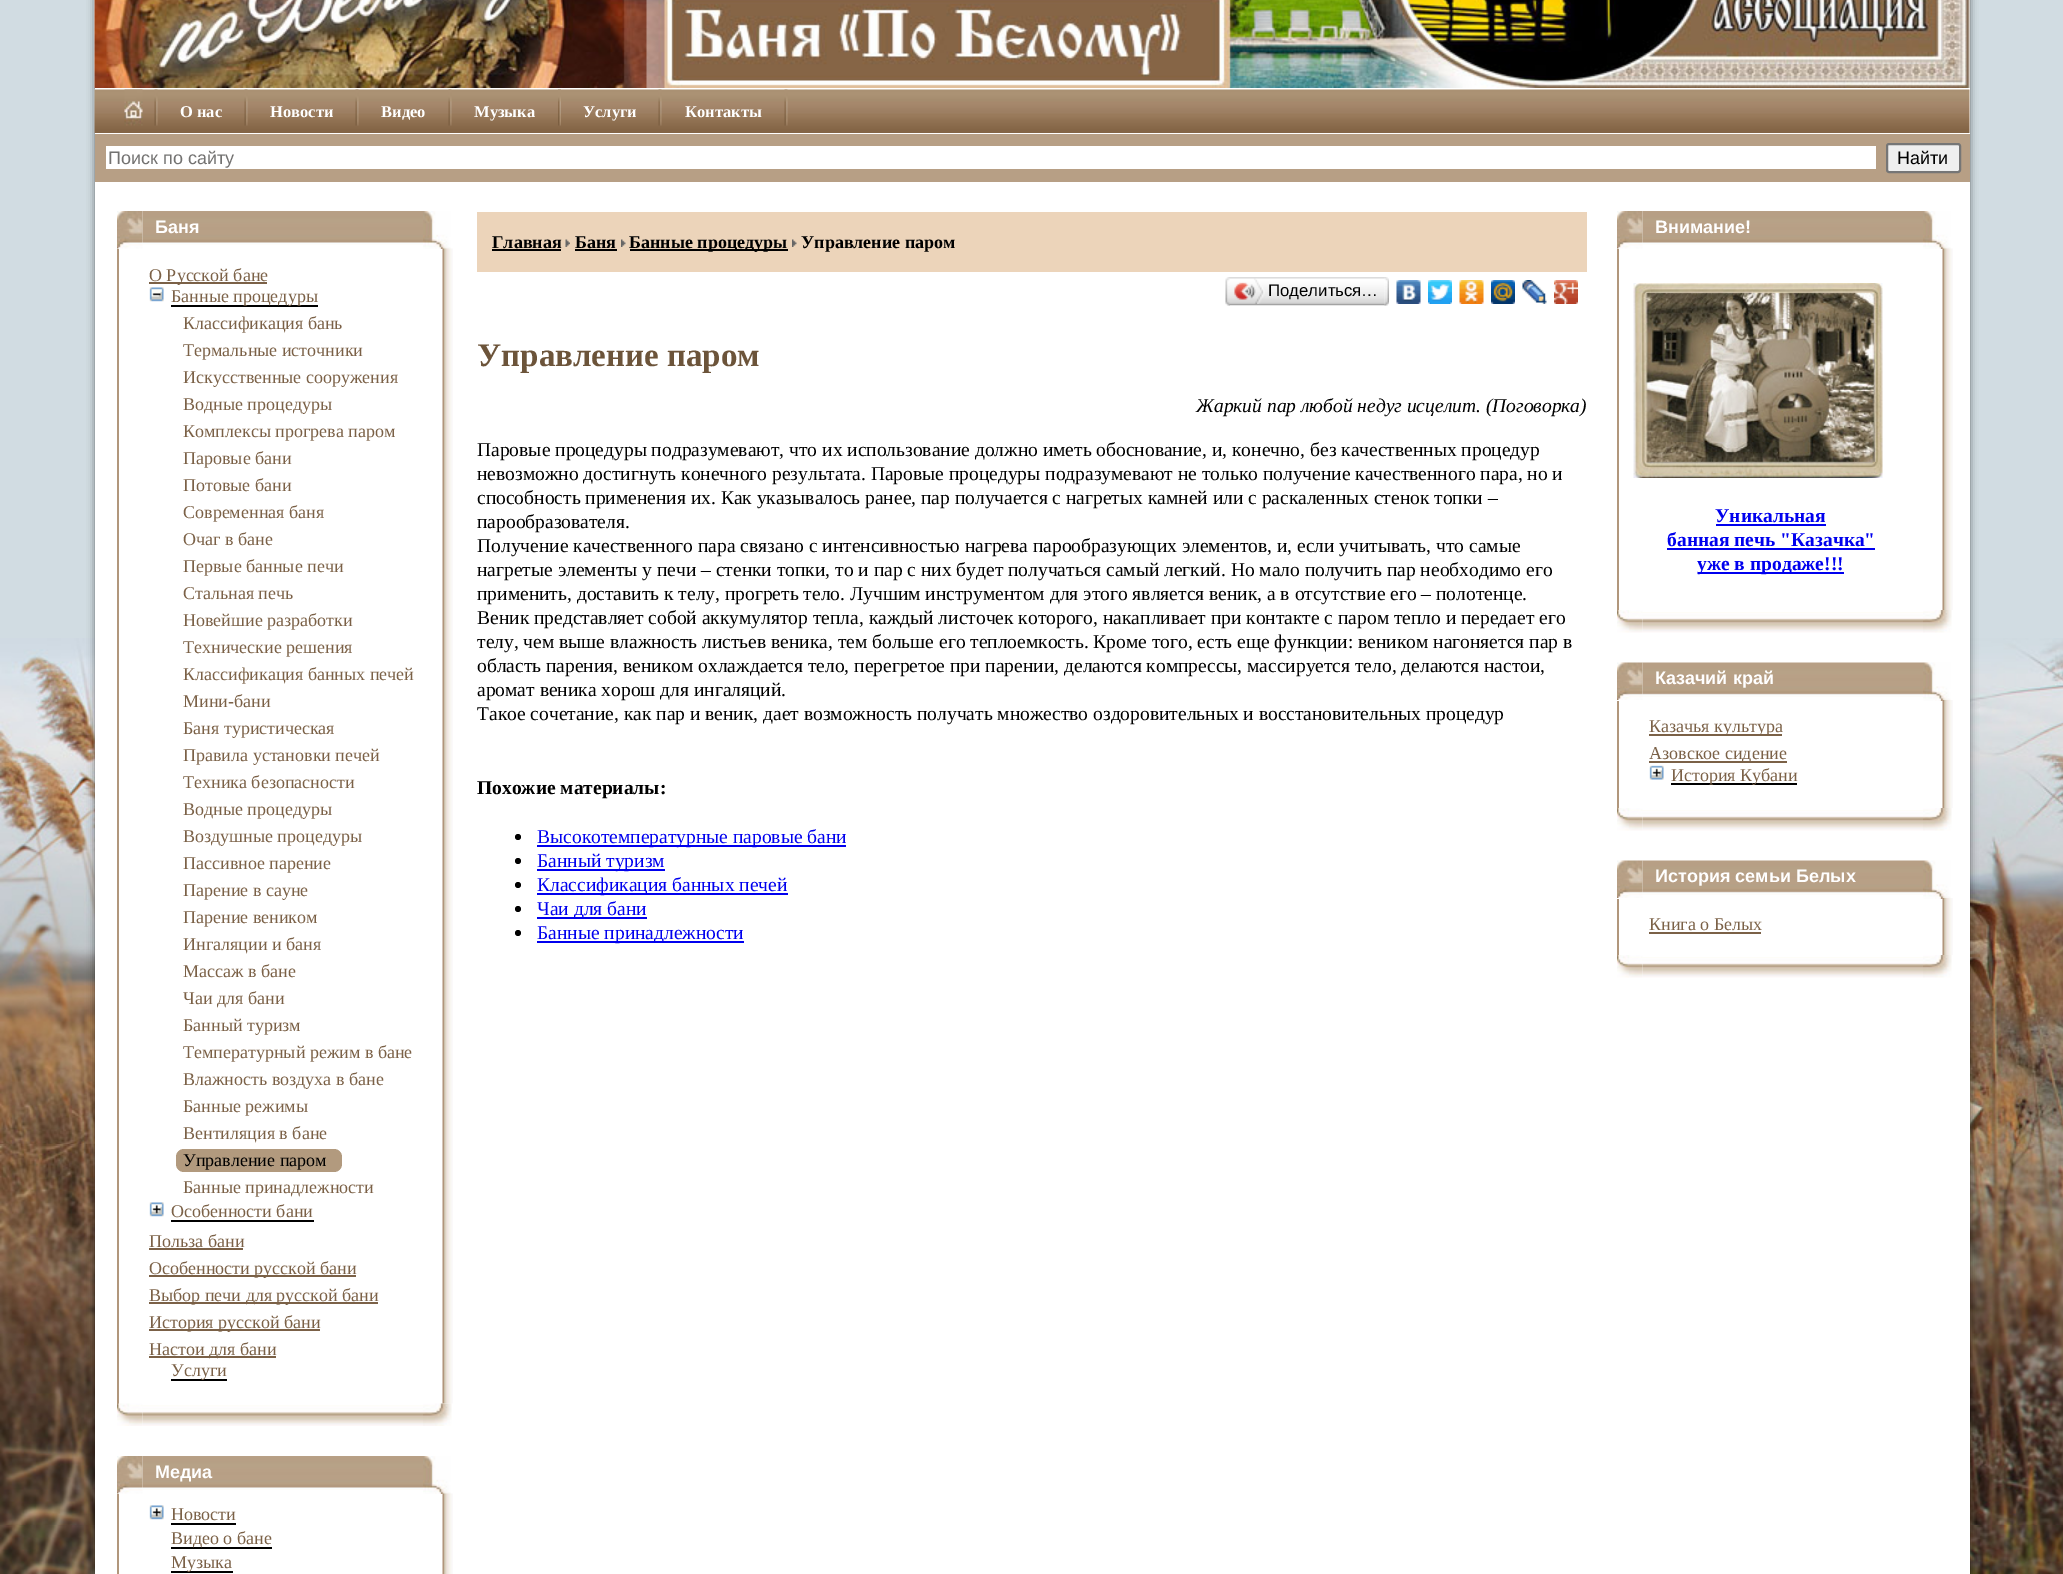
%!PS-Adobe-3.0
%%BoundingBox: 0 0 2063 1574
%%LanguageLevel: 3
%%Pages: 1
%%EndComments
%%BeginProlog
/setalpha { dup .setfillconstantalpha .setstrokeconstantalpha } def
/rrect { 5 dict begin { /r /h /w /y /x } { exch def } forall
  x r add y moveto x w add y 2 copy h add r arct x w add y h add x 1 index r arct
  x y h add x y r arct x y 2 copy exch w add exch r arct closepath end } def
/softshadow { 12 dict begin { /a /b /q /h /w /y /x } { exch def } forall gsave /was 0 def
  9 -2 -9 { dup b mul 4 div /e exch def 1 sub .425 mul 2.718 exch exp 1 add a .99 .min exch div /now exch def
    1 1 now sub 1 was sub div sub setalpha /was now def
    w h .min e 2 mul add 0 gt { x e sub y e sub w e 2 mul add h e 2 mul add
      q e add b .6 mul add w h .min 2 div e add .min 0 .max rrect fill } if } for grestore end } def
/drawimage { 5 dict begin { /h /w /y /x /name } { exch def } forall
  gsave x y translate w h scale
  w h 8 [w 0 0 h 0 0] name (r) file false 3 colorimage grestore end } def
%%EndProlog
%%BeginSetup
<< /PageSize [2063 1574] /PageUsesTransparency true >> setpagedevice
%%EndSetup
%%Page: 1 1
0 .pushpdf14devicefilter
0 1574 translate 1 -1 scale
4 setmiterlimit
0.82 0.863 0.886 setrgbcolor
0 0 2063 1574 rectfill
(images/1.raw) 0 638 2063 936 drawimage
0 setgray
95 -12 1875 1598 0 4 0.5 softshadow
1 setgray
95 0 1875 1574 rectfill
0.863 0.882 0.894 setrgbcolor
94 0 1 88 rectfill
(images/2.raw) 94 0 1876 88 drawimage
(images/3.raw) 94 89 1876 44 drawimage
(images/4.raw) 124 89 19 37 drawimage
(images/5.raw) 154 89 4 37 drawimage
(images/5.raw) 244 89 4 37 drawimage
(images/5.raw) 355 89 4 37 drawimage
(images/5.raw) 448 89 4 37 drawimage
(images/6.raw) 558 89 3 37 drawimage
(images/5.raw) 658 89 4 37 drawimage
(images/5.raw) 784 89 4 37 drawimage
0.718 0.624 0.522 setrgbcolor
95 134 1875 48 rectfill
1 setgray
106 146 1770 23 rectfill
0.937 setgray
1887 144 73 28 2 rrect gsave fill grestore
0.463 setgray
2 setlinewidth
stroke
(images/7.raw) 117 211 26 38 drawimage
(images/8.raw) 423 211 28 38 drawimage
(images/9.raw) 142 211 281 34 drawimage
(images/10.raw) 442 248 11 1156 drawimage
0.694 0.592 0.486 setrgbcolor
117 249 2 1155 rectfill
0.482 0.38 0.278 setrgbcolor
149 282 118 2 rectfill
(images/11.raw) 149 287 15 15 drawimage
0 setgray
171 305 147 2 rectfill
0.698 0.604 0.494 setrgbcolor
183 1149 159 23 8 rrect fill
176 1149 159 23 8 rrect fill
(images/12.raw) 149 1202 15 15 drawimage
0 setgray
171 1220 143 2 rectfill
0.482 0.38 0.278 setrgbcolor
149 1248 94 2 rectfill
149 1275 207 2 rectfill
149 1302 229 2 rectfill
149 1329 171 2 rectfill
149 1356 127 2 rectfill
0 setgray
171 1379 56 2 rectfill
(images/13.raw) 117 1403 26 23 drawimage
(images/14.raw) 423 1403 29 23 drawimage
(images/15.raw) 142 1405 281 21 drawimage
(images/7.raw) 117 1456 26 38 drawimage
(images/8.raw) 423 1456 28 38 drawimage
(images/9.raw) 142 1456 281 34 drawimage
(images/16.raw) 442 1493 11 81 drawimage
0.694 0.592 0.486 setrgbcolor
117 1494 2 80 rectfill
(images/12.raw) 149 1505 15 15 drawimage
0 setgray
171 1523 65 2 rectfill
171 1547 101 2 rectfill
171 1571 62 2 rectfill
0.925 0.831 0.729 setrgbcolor
477 212 1110 60 rectfill
0 setgray
492 249 69 2 rectfill
(images/17.raw) 565 239 5 8 drawimage
575 249 42 2 rectfill
(images/18.raw) 621 239 5 8 drawimage
630 249 158 2 rectfill
(images/18.raw) 792 239 5 8 drawimage
(images/19.raw) 1230 277 155 29 drawimage
(images/20.raw) 1225 277 5 29 drawimage
(images/21.raw) 1234 278 31 26 drawimage
(images/22.raw) 1384 277 5 29 drawimage
(images/23.raw) 1396 280 25 24 drawimage
(images/24.raw) 1428 280 24 24 drawimage
(images/25.raw) 1459 280 25 24 drawimage
(images/26.raw) 1491 280 24 24 drawimage
(images/27.raw) 1522 280 25 24 drawimage
(images/28.raw) 1554 280 24 24 drawimage
newpath 518 837 3 0 360 arc closepath fill
0 0 0.933 setrgbcolor
537 845 309 2 rectfill
0 setgray
newpath 518 861 3 0 360 arc closepath fill
0 0 0.933 setrgbcolor
537 869 128 2 rectfill
0 setgray
newpath 518 885 3 0 360 arc closepath fill
0 0 0.933 setrgbcolor
537 893 251 2 rectfill
0 setgray
newpath 518 909 3 0 360 arc closepath fill
0 0 0.933 setrgbcolor
537 917 110 2 rectfill
0 setgray
newpath 518 933 3 0 360 arc closepath fill
0 0 0.933 setrgbcolor
537 941 207 2 rectfill
(images/7.raw) 1617 211 26 38 drawimage
(images/8.raw) 1923 211 28 38 drawimage
(images/9.raw) 1642 211 281 34 drawimage
(images/29.raw) 1942 248 11 362 drawimage
0.694 0.592 0.486 setrgbcolor
1617 249 2 362 rectfill
(images/30.raw) 1633 283 250 195 drawimage
0 0 0.933 setrgbcolor
1716 524 110 2 rectfill
1667 548 208 2 rectfill
1698 572 146 2 rectfill
(images/31.raw) 1617 610 26 23 drawimage
(images/32.raw) 1923 610 29 23 drawimage
(images/33.raw) 1642 612 281 21 drawimage
(images/34.raw) 1617 662 26 38 drawimage
(images/35.raw) 1923 662 28 39 drawimage
(images/36.raw) 1642 662 281 35 drawimage
(images/37.raw) 1942 700 11 108 drawimage
0.694 0.592 0.486 setrgbcolor
1617 701 2 108 rectfill
0.482 0.38 0.278 setrgbcolor
1649 734 133 2 rectfill
1649 761 138 2 rectfill
(images/38.raw) 1649 765 15 15 drawimage
0 setgray
1671 783 126 2 rectfill
(images/31.raw) 1617 808 26 23 drawimage
(images/32.raw) 1923 808 29 23 drawimage
(images/33.raw) 1642 810 281 21 drawimage
(images/34.raw) 1617 860 26 38 drawimage
(images/35.raw) 1923 860 28 39 drawimage
(images/36.raw) 1642 860 281 35 drawimage
(images/39.raw) 1942 898 11 57 drawimage
0.694 0.592 0.486 setrgbcolor
1617 899 2 57 rectfill
0.482 0.38 0.278 setrgbcolor
1649 932 112 2 rectfill
(images/31.raw) 1617 955 26 23 drawimage
(images/32.raw) 1923 955 29 23 drawimage
(images/33.raw) 1642 957 281 21 drawimage
/LiberationSerif-Bold [16.5 0 0 -16.5 0 0] selectfont
1 setgray
180 117 moveto (О нас) show
270 117 moveto (Новости) show
381 117 moveto (Видео) show
474 117 moveto (Музыка) show
583 117 moveto (Услуги) show
685 117 moveto (Контакты) show
/LiberationSans-Regular [18 0 0 -18 0 0] selectfont
0.451 0.447 0.443 setrgbcolor
108 164 moveto (Поиск по сайту) show
0 setgray
1897 164 moveto (Найти) show
/LiberationSans-Bold [18 0 0 -18 0 0] selectfont
1 setgray
155 233 moveto (Баня) show
/LiberationSerif-Regular [18 0 0 -18 0 0] selectfont
0.482 0.38 0.278 setrgbcolor
149 281 moveto (О Русской бане) show
171 302 moveto (Банные процедуры) show
183 329 moveto (Классификация бань) show
183 356 moveto (Термальные источники) show
183 383 moveto (Искусственные сооружения) show
183 410 moveto (Водные процедуры) show
183 437 moveto (Комплексы прогрева паром) show
183 464 moveto (Паровые бани) show
183 491 moveto (Потовые бани) show
183 518 moveto (Современная баня) show
183 545 moveto (Очаг в бане) show
183 572 moveto (Первые банные печи) show
183 599 moveto (Стальная печь) show
183 626 moveto (Новейшие разработки) show
183 653 moveto (Технические решения) show
183 680 moveto (Классификация банных печей) show
183 707 moveto (Мини-бани) show
183 734 moveto (Баня туристическая) show
183 761 moveto (Правила установки печей) show
183 788 moveto (Техника безопасности) show
183 815 moveto (Водные процедуры) show
183 842 moveto (Воздушные процедуры) show
183 869 moveto (Пассивное парение) show
183 896 moveto (Парение в сауне) show
183 923 moveto (Парение веником) show
183 950 moveto (Ингаляции и баня) show
183 977 moveto (Массаж в бане) show
183 1004 moveto (Чаи для бани) show
183 1031 moveto (Банный туризм) show
183 1058 moveto (Температурный режим в бане) show
183 1085 moveto (Влажность воздуха в бане) show
183 1112 moveto (Банные режимы) show
183 1139 moveto (Вентиляция в бане) show
0 setgray
183 1166 moveto (Управление паром) show
0.482 0.38 0.278 setrgbcolor
183 1193 moveto (Банные принадлежности) show
171 1217 moveto (Особенности бани) show
149 1247 moveto (Польза бани) show
149 1274 moveto (Особенности русской бани) show
149 1301 moveto (Выбор печи для русской бани) show
149 1328 moveto (История русской бани) show
149 1355 moveto (Настои для бани) show
171 1376 moveto (Услуги) show
/LiberationSans-Bold [18 0 0 -18 0 0] selectfont
1 setgray
155 1478 moveto (Медиа) show
/LiberationSerif-Regular [18 0 0 -18 0 0] selectfont
0.482 0.38 0.278 setrgbcolor
171 1520 moveto (Новости) show
171 1544 moveto (Видео о бане) show
171 1568 moveto (Музыка) show
/LiberationSerif-Bold [18 0 0 -18 0 0] selectfont
0 setgray
492 248 moveto (Главная) show
575 248 moveto (Баня) show
629 248 moveto (Банные процедуры) show
801 248 moveto (Управление паром) show
/LiberationSans-Regular [16.75 0 0 -16.75 0 0] selectfont
1268 296 moveto (Поделиться…) show
/LiberationSerif-Bold [33 0 0 -33 0 0] selectfont
0.424 0.329 0.227 setrgbcolor
477 366 moveto (Управление паром) show
/LiberationSerif-Italic [19.5 0 0 -19.5 0 0] selectfont
0 setgray
1196 412 moveto (Жаркий пар любой недуг исцелит. \(Поговорка\)) show
/LiberationSerif-Regular [19.5 0 0 -19.5 0 0] selectfont
477 456 moveto (Паровые процедуры подразумевают, что их использование должно иметь обоснование, и, конечно, без качественных процедур) show
477 480 moveto (невозможно достигнуть конечного результата. Паровые процедуры подразумевают не только получение качественного пара, но и) show
477 504 moveto (способность применения их. Как указывалось ранее, пар получается с нагретых камней или с раскаленных стенок топки –) show
477 528 moveto (парообразователя.) show
477 552 moveto (Получение качественного пара связано с интенсивностью нагрева парообразующих элементов, и, если учитывать, что самые) show
477 576 moveto (нагретые элементы у печи – стенки топки, то и пар с них будет получаться самый легкий. Но мало получить пар необходимо его) show
477 600 moveto (применить, доставить к телу, прогреть тело. Лучшим инструментом для этого является веник, а в отсутствие его – полотенце.) show
477 624 moveto (Веник представляет собой аккумулятор тепла, каждый листочек которого, накапливает при контакте с паром тепло и передает его) show
477 648 moveto (телу, чем выше влажность листьев веника, тем больше его теплоемкость. Кроме того, есть еще функции: веником нагоняется пар в) show
477 672 moveto (область парения, веником охлаждается тело, перегретое при парении, делаются компрессы, массируется тело, делаются настои,) show
477 696 moveto (аромат веника хорош для ингаляций.) show
477 720 moveto (Такое сочетание, как пар и веник, дает возможность получать множество оздоровительных и восстановительных процедур) show
/LiberationSerif-Bold [19.5 0 0 -19.5 0 0] selectfont
477 794 moveto (Похожие материалы:) show
/LiberationSerif-Regular [19.5 0 0 -19.5 0 0] selectfont
0 0 0.933 setrgbcolor
537 843 moveto (Высокотемпературные паровые бани) show
537 867 moveto (Банный туризм) show
537 891 moveto (Классификация банных печей) show
537 915 moveto (Чаи для бани) show
537 939 moveto (Банные принадлежности) show
/LiberationSans-Bold [18 0 0 -18 0 0] selectfont
1 setgray
1655 233 moveto (Внимание!) show
/LiberationSerif-Bold [19.5 0 0 -19.5 0 0] selectfont
0 0 0.933 setrgbcolor
1715 522 moveto (Уникальная) show
1667 546 moveto (банная печь "Казачка") show
1697 570 moveto (уже в продаже!!!) show
/LiberationSans-Bold [18 0 0 -18 0 0] selectfont
1 setgray
1655 684 moveto (Казачий край) show
/LiberationSerif-Regular [18 0 0 -18 0 0] selectfont
0.482 0.38 0.278 setrgbcolor
1649 732 moveto (Казачья культура) show
1649 759 moveto (Азовское сидение) show
1671 781 moveto (История Кубани) show
/LiberationSans-Bold [18 0 0 -18 0 0] selectfont
1 setgray
1655 882 moveto (История семьи Белых) show
/LiberationSerif-Regular [18 0 0 -18 0 0] selectfont
0.482 0.38 0.278 setrgbcolor
1649 930 moveto (Книга о Белых) show
.poppdf14devicefilter showpage
%%EOF
